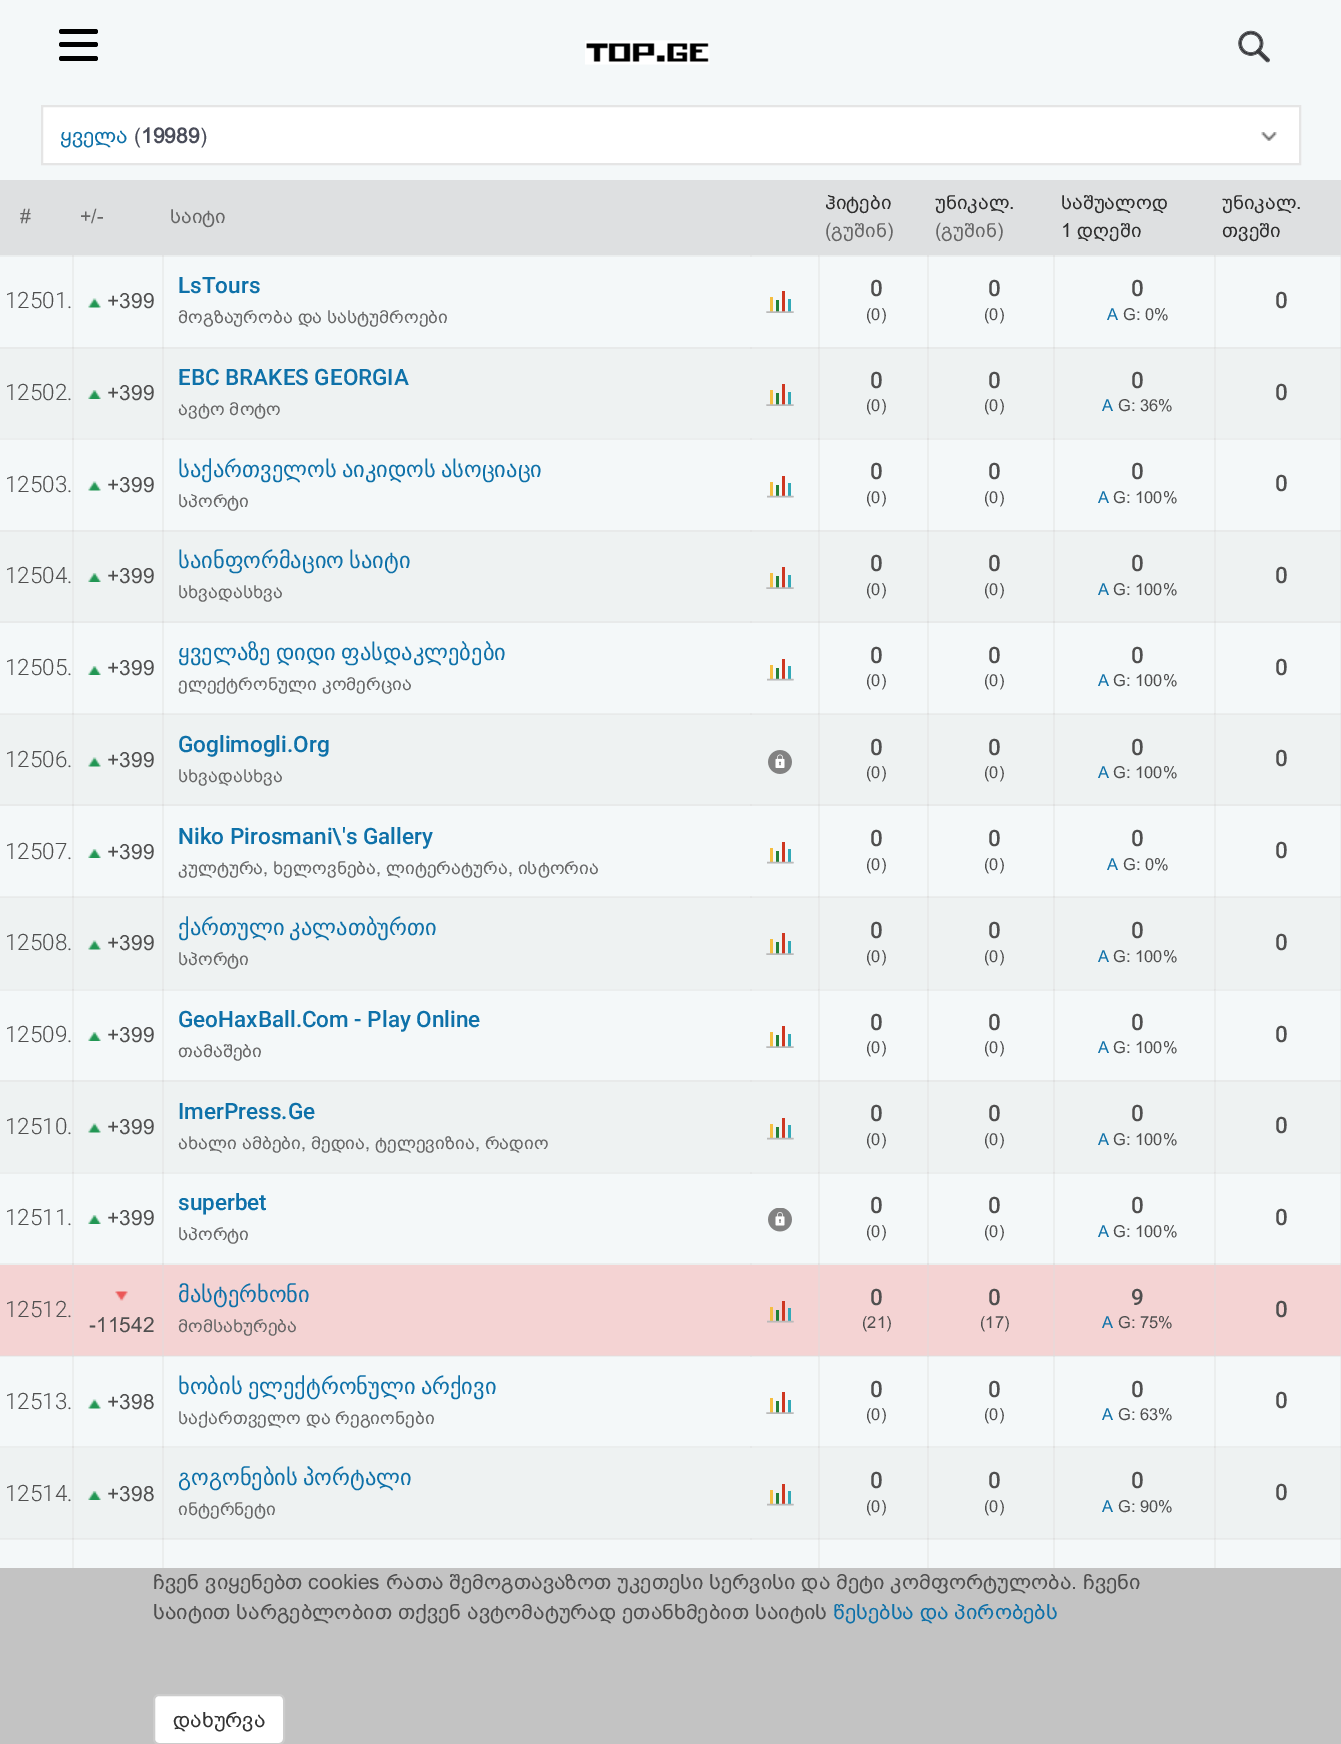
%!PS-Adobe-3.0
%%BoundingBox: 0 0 1341 1744
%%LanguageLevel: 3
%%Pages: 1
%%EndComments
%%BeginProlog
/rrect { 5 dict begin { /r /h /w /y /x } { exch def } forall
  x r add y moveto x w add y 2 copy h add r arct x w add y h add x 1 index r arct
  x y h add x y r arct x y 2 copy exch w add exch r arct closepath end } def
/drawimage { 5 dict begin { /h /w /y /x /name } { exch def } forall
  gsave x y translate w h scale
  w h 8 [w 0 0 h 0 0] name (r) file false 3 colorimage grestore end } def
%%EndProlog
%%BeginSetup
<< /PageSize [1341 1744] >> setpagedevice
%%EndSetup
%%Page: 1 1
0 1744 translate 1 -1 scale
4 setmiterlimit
0.957 0.973 0.976 setrgbcolor
0 0 1341 1744 rectfill
0.922 0.933 0.933 setrgbcolor
72 255 2 93 rectfill
0 255 74 2 rectfill
162 255 2 93 rectfill
72 255 680 2 rectfill
0.89 0.894 0.894 setrgbcolor
72 255 2 2 rectfill
162 255 2 2 rectfill
0.922 0.933 0.933 setrgbcolor
818 255 2 93 rectfill
750 255 69 2 rectfill
0.902 0.91 0.91 setrgbcolor
750 255 2 2 rectfill
0.922 0.933 0.933 setrgbcolor
927 255 2 93 rectfill
818 255 111 2 rectfill
0.902 0.91 0.91 setrgbcolor
818 255 2 2 rectfill
0.89 0.894 0.894 setrgbcolor
818 255 1 2 rectfill
0.922 0.933 0.933 setrgbcolor
1053 255 2 93 rectfill
927 255 128 2 rectfill
0.89 0.894 0.894 setrgbcolor
927 255 2 2 rectfill
0.922 0.933 0.933 setrgbcolor
1214 255 2 93 rectfill
1053 255 162 2 rectfill
0.89 0.894 0.894 setrgbcolor
1053 255 2 2 rectfill
0.922 0.933 0.933 setrgbcolor
1340 255 1 93 rectfill
72 438 2 93 rectfill
0 438 74 2 rectfill
162 438 2 93 rectfill
72 438 680 2 rectfill
0.882 setgray
72 438 2 2 rectfill
162 438 2 2 rectfill
0.922 0.933 0.933 setrgbcolor
818 438 2 93 rectfill
750 438 69 2 rectfill
0.902 0.91 0.91 setrgbcolor
750 438 2 2 rectfill
0.922 0.933 0.933 setrgbcolor
927 438 2 93 rectfill
818 438 111 2 rectfill
0.89 0.894 0.894 setrgbcolor
818 438 2 2 rectfill
0.882 setgray
818 438 1 2 rectfill
0.922 0.933 0.933 setrgbcolor
1053 438 2 93 rectfill
927 438 128 2 rectfill
0.882 setgray
927 438 2 2 rectfill
0.922 0.933 0.933 setrgbcolor
1214 438 2 93 rectfill
1053 438 162 2 rectfill
0.882 setgray
1053 438 2 2 rectfill
0.922 0.933 0.933 setrgbcolor
1340 438 1 93 rectfill
72 621 2 93 rectfill
162 621 2 93 rectfill
818 621 2 93 rectfill
927 621 2 93 rectfill
1053 621 2 93 rectfill
1214 621 2 93 rectfill
1340 621 1 93 rectfill
0 713 1341 1 rectfill
0.882 setgray
72 713 2 1 rectfill
162 713 2 1 rectfill
0.902 0.91 0.91 setrgbcolor
750 713 2 1 rectfill
0.89 0.894 0.894 setrgbcolor
818 713 2 1 rectfill
0.882 setgray
818 713 1 1 rectfill
927 713 2 1 rectfill
1053 713 2 1 rectfill
0.89 0.894 0.894 setrgbcolor
1214 713 2 1 rectfill
0.882 setgray
1214 713 1 1 rectfill
0.89 0.894 0.894 setrgbcolor
1340 713 1 1 rectfill
0.922 0.933 0.933 setrgbcolor
72 804 2 93 rectfill
162 804 2 93 rectfill
818 804 2 93 rectfill
927 804 2 93 rectfill
1053 804 2 93 rectfill
1214 804 2 93 rectfill
1340 804 1 93 rectfill
0 896 1341 1 rectfill
0.882 setgray
72 896 2 1 rectfill
162 896 2 1 rectfill
0.902 0.91 0.91 setrgbcolor
750 896 2 1 rectfill
0.89 0.894 0.894 setrgbcolor
818 896 2 1 rectfill
0.882 setgray
818 896 1 1 rectfill
927 896 2 1 rectfill
1053 896 2 1 rectfill
0.89 0.894 0.894 setrgbcolor
1214 896 2 1 rectfill
0.882 setgray
1214 896 1 1 rectfill
0.89 0.894 0.894 setrgbcolor
1340 896 1 1 rectfill
0.922 0.933 0.933 setrgbcolor
72 989 2 93 rectfill
0 989 74 2 rectfill
162 989 2 93 rectfill
72 989 680 2 rectfill
0.89 0.894 0.894 setrgbcolor
72 990 2 1 rectfill
0.882 setgray
72 989 2 1 rectfill
0.89 0.894 0.894 setrgbcolor
162 990 2 1 rectfill
0.882 setgray
162 989 2 1 rectfill
0.922 0.933 0.933 setrgbcolor
818 989 2 93 rectfill
750 989 69 2 rectfill
0.902 0.91 0.91 setrgbcolor
750 989 2 2 rectfill
0.922 0.933 0.933 setrgbcolor
927 989 2 93 rectfill
818 989 111 2 rectfill
0.902 0.91 0.91 setrgbcolor
818 990 2 1 rectfill
0.89 0.894 0.894 setrgbcolor
818 989 2 1 rectfill
818 989 1 2 rectfill
0.882 setgray
818 989 1 1 rectfill
0.922 0.933 0.933 setrgbcolor
1053 989 2 93 rectfill
927 989 128 2 rectfill
0.89 0.894 0.894 setrgbcolor
927 990 2 1 rectfill
0.882 setgray
927 989 2 1 rectfill
0.922 0.933 0.933 setrgbcolor
1214 989 2 93 rectfill
1053 989 162 2 rectfill
0.89 0.894 0.894 setrgbcolor
1053 990 2 1 rectfill
0.882 setgray
1053 989 2 1 rectfill
0.922 0.933 0.933 setrgbcolor
1340 989 1 93 rectfill
72 1172 2 93 rectfill
0 1172 74 2 rectfill
162 1172 2 93 rectfill
72 1172 680 2 rectfill
0.89 0.894 0.894 setrgbcolor
72 1173 2 1 rectfill
0.882 setgray
72 1172 2 1 rectfill
0.89 0.894 0.894 setrgbcolor
162 1173 2 1 rectfill
0.882 setgray
162 1172 2 1 rectfill
0.922 0.933 0.933 setrgbcolor
818 1172 2 93 rectfill
750 1172 69 2 rectfill
0.902 0.91 0.91 setrgbcolor
750 1172 2 2 rectfill
0.922 0.933 0.933 setrgbcolor
927 1172 2 93 rectfill
818 1172 111 2 rectfill
0.902 0.91 0.91 setrgbcolor
818 1173 2 1 rectfill
0.89 0.894 0.894 setrgbcolor
818 1172 2 1 rectfill
818 1172 1 2 rectfill
0.882 setgray
818 1172 1 1 rectfill
0.922 0.933 0.933 setrgbcolor
1053 1172 2 93 rectfill
927 1172 128 2 rectfill
0.89 0.894 0.894 setrgbcolor
927 1173 2 1 rectfill
0.882 setgray
927 1172 2 1 rectfill
0.922 0.933 0.933 setrgbcolor
1214 1172 2 93 rectfill
1053 1172 162 2 rectfill
0.89 0.894 0.894 setrgbcolor
1053 1173 2 1 rectfill
0.882 setgray
1053 1172 2 1 rectfill
0.922 0.933 0.933 setrgbcolor
1340 1172 1 93 rectfill
0 1263 1215 2 rectfill
0.882 setgray
72 1263 2 2 rectfill
162 1263 2 2 rectfill
0.902 0.91 0.91 setrgbcolor
750 1263 2 2 rectfill
0.89 0.894 0.894 setrgbcolor
818 1263 2 2 rectfill
0.882 setgray
818 1263 1 2 rectfill
927 1263 2 2 rectfill
1053 1263 2 2 rectfill
0.922 0.933 0.933 setrgbcolor
72 1355 2 93 rectfill
0 1356 74 1 rectfill
162 1355 2 93 rectfill
72 1356 680 1 rectfill
0.89 0.894 0.894 setrgbcolor
72 1356 2 1 rectfill
162 1356 2 1 rectfill
0.922 0.933 0.933 setrgbcolor
818 1355 2 93 rectfill
750 1356 69 1 rectfill
0.902 0.91 0.91 setrgbcolor
750 1356 2 1 rectfill
0.922 0.933 0.933 setrgbcolor
927 1355 2 93 rectfill
818 1356 111 1 rectfill
0.902 0.91 0.91 setrgbcolor
818 1356 2 1 rectfill
0.89 0.894 0.894 setrgbcolor
818 1355 1 2 rectfill
0.922 0.933 0.933 setrgbcolor
1053 1355 2 93 rectfill
927 1356 128 1 rectfill
0.89 0.894 0.894 setrgbcolor
927 1356 2 1 rectfill
0.922 0.933 0.933 setrgbcolor
1214 1355 2 93 rectfill
1053 1356 162 1 rectfill
0.89 0.894 0.894 setrgbcolor
1053 1356 2 1 rectfill
0.922 0.933 0.933 setrgbcolor
1340 1355 1 93 rectfill
1214 1356 127 1 rectfill
0.902 0.91 0.91 setrgbcolor
1214 1356 2 1 rectfill
0.89 0.894 0.894 setrgbcolor
1214 1355 1 2 rectfill
0.902 0.91 0.91 setrgbcolor
1340 1355 1 2 rectfill
0.922 0.933 0.933 setrgbcolor
0 1446 1215 2 rectfill
0.882 setgray
72 1446 2 2 rectfill
162 1446 2 2 rectfill
0.902 0.91 0.91 setrgbcolor
750 1446 2 2 rectfill
0.89 0.894 0.894 setrgbcolor
818 1446 2 2 rectfill
0.882 setgray
818 1446 1 2 rectfill
927 1446 2 2 rectfill
1053 1446 2 2 rectfill
0.922 0.933 0.933 setrgbcolor
72 1538 2 30 rectfill
0 1539 74 1 rectfill
162 1538 2 30 rectfill
72 1539 680 1 rectfill
0.89 0.894 0.894 setrgbcolor
72 1539 2 1 rectfill
162 1539 2 1 rectfill
0.922 0.933 0.933 setrgbcolor
818 1538 2 30 rectfill
750 1539 69 1 rectfill
0.902 0.91 0.91 setrgbcolor
750 1539 2 1 rectfill
0.922 0.933 0.933 setrgbcolor
927 1538 2 30 rectfill
818 1539 111 1 rectfill
0.902 0.91 0.91 setrgbcolor
818 1539 2 1 rectfill
0.89 0.894 0.894 setrgbcolor
818 1538 1 2 rectfill
0.922 0.933 0.933 setrgbcolor
1053 1538 2 30 rectfill
927 1539 128 1 rectfill
0.89 0.894 0.894 setrgbcolor
927 1539 2 1 rectfill
0.922 0.933 0.933 setrgbcolor
1214 1538 2 30 rectfill
1053 1539 162 1 rectfill
0.89 0.894 0.894 setrgbcolor
1053 1539 2 1 rectfill
0.922 0.933 0.933 setrgbcolor
1340 1538 1 30 rectfill
1214 1539 127 1 rectfill
0.902 0.91 0.91 setrgbcolor
1214 1539 2 1 rectfill
0.89 0.894 0.894 setrgbcolor
1214 1538 1 2 rectfill
0.902 0.91 0.91 setrgbcolor
1340 1538 1 2 rectfill
0 setgray
59 29 39 5 2.5 rrect fill
59 42 39 5 2.5 rrect fill
59 56 39 5 2.5 rrect fill
(images/1.raw) 585 40 125 25 drawimage
(images/2.raw) 1238 30 32 33 drawimage
1 setgray
newpath 42 106 moveto 1300 106 lineto 1300 164 lineto 42 164 lineto closepath gsave fill grestore
0.898 setgray
2 setlinewidth
stroke
(images/3.raw) 1261 132 16 9 drawimage
0.871 0.878 0.882 setrgbcolor
0 180 1341 75 rectfill
(images/4.raw) 88 298 13 10 drawimage
0.961 0.745 0.251 setrgbcolor
770 297 3 15 rectfill
0.141 0.506 0.224 setrgbcolor
776 300 3 12 rectfill
0.812 0.216 0.133 setrgbcolor
782 291 3 21 rectfill
0.196 0.663 0.722 setrgbcolor
788 299 3 13 rectfill
0.729 setgray
1.5 setlinewidth
1 setlinecap
1 setlinejoin
newpath 767 312 moveto 793 312 lineto stroke
0.922 0.933 0.933 setrgbcolor
1214 255 127 2 rectfill
0.902 0.91 0.91 setrgbcolor
1214 255 2 2 rectfill
0.89 0.894 0.894 setrgbcolor
1214 255 1 2 rectfill
0.902 0.91 0.91 setrgbcolor
1340 255 1 2 rectfill
0.933 0.949 0.949 setrgbcolor
0 349 1340 89 rectfill
0.91 0.918 0.918 setrgbcolor
72 347 2 91 rectfill
0 347 74 2 rectfill
162 347 2 91 rectfill
72 347 680 2 rectfill
0.882 0.886 0.886 setrgbcolor
72 348 2 1 rectfill
0.875 0.878 0.878 setrgbcolor
72 347 2 1 rectfill
0.882 0.886 0.886 setrgbcolor
162 348 2 1 rectfill
0.875 0.878 0.878 setrgbcolor
162 347 2 1 rectfill
0.91 0.918 0.918 setrgbcolor
818 347 2 91 rectfill
750 347 69 2 rectfill
0.894 0.898 0.898 setrgbcolor
750 347 2 2 rectfill
0.91 0.918 0.918 setrgbcolor
927 347 2 91 rectfill
818 347 111 2 rectfill
0.894 0.898 0.898 setrgbcolor
818 348 2 1 rectfill
0.882 0.886 0.886 setrgbcolor
818 347 2 1 rectfill
818 347 1 2 rectfill
0.91 0.918 0.918 setrgbcolor
1053 347 2 91 rectfill
927 347 128 2 rectfill
0.882 0.886 0.886 setrgbcolor
927 348 2 1 rectfill
0.875 0.878 0.878 setrgbcolor
927 347 2 1 rectfill
0.91 0.918 0.918 setrgbcolor
1214 347 2 91 rectfill
1053 347 162 2 rectfill
0.882 0.886 0.886 setrgbcolor
1053 348 2 1 rectfill
0.875 0.878 0.878 setrgbcolor
1053 347 2 1 rectfill
0.91 0.918 0.918 setrgbcolor
1340 347 1 91 rectfill
(images/5.raw) 88 390 13 9 drawimage
0.961 0.745 0.251 setrgbcolor
770 390 3 15 rectfill
0.141 0.506 0.224 setrgbcolor
776 393 3 12 rectfill
0.812 0.216 0.133 setrgbcolor
782 384 3 21 rectfill
0.196 0.663 0.722 setrgbcolor
788 392 3 13 rectfill
0.729 setgray
newpath 767 405 moveto 793 405 lineto stroke
0.91 0.918 0.918 setrgbcolor
1214 347 127 2 rectfill
0.894 0.898 0.898 setrgbcolor
1214 348 2 1 rectfill
0.882 0.886 0.886 setrgbcolor
1214 347 2 1 rectfill
1214 347 1 2 rectfill
0.894 0.898 0.898 setrgbcolor
1340 347 1 2 rectfill
0.882 0.886 0.886 setrgbcolor
1340 347 1 1 rectfill
(images/4.raw) 88 481 13 10 drawimage
0.961 0.745 0.251 setrgbcolor
770 482 3 15 rectfill
0.141 0.506 0.224 setrgbcolor
776 485 3 12 rectfill
0.812 0.216 0.133 setrgbcolor
782 476 3 21 rectfill
0.196 0.663 0.722 setrgbcolor
788 483 3 14 rectfill
gsave
767 476 27 22 rectclip
0.729 setgray
newpath 767 496.5 moveto 793 496.5 lineto stroke
grestore
0.922 0.933 0.933 setrgbcolor
1214 438 127 2 rectfill
0.89 0.894 0.894 setrgbcolor
1214 438 2 2 rectfill
0.882 setgray
1214 438 1 2 rectfill
0.89 0.894 0.894 setrgbcolor
1340 438 1 2 rectfill
0.933 0.949 0.949 setrgbcolor
0 532 1340 89 rectfill
0.91 0.918 0.918 setrgbcolor
72 530 2 93 rectfill
0 530 74 2 rectfill
162 530 2 93 rectfill
72 530 680 2 rectfill
0.882 0.886 0.886 setrgbcolor
72 531 2 1 rectfill
0.875 0.878 0.878 setrgbcolor
72 530 2 1 rectfill
0.882 0.886 0.886 setrgbcolor
162 531 2 1 rectfill
0.875 0.878 0.878 setrgbcolor
162 530 2 1 rectfill
0.91 0.918 0.918 setrgbcolor
818 530 2 93 rectfill
750 530 69 2 rectfill
0.894 0.898 0.898 setrgbcolor
750 530 2 2 rectfill
0.91 0.918 0.918 setrgbcolor
927 530 2 93 rectfill
818 530 111 2 rectfill
0.894 0.898 0.898 setrgbcolor
818 531 2 1 rectfill
0.882 0.886 0.886 setrgbcolor
818 530 2 1 rectfill
818 530 1 2 rectfill
0.91 0.918 0.918 setrgbcolor
1053 530 2 93 rectfill
927 530 128 2 rectfill
0.882 0.886 0.886 setrgbcolor
927 531 2 1 rectfill
0.875 0.878 0.878 setrgbcolor
927 530 2 1 rectfill
0.91 0.918 0.918 setrgbcolor
1214 530 2 93 rectfill
1053 530 162 2 rectfill
0.882 0.886 0.886 setrgbcolor
1053 531 2 1 rectfill
0.875 0.878 0.878 setrgbcolor
1053 530 2 1 rectfill
0.91 0.918 0.918 setrgbcolor
1340 530 1 93 rectfill
0 621 1341 2 rectfill
0.875 0.878 0.878 setrgbcolor
72 621 2 2 rectfill
162 621 2 2 rectfill
0.894 0.898 0.898 setrgbcolor
750 621 2 2 rectfill
0.882 0.886 0.886 setrgbcolor
818 621 2 2 rectfill
0.875 0.878 0.878 setrgbcolor
927 621 2 2 rectfill
1053 621 2 2 rectfill
(images/5.raw) 88 573 13 9 drawimage
0.961 0.745 0.251 setrgbcolor
770 573 3 15 rectfill
0.141 0.506 0.224 setrgbcolor
776 576 3 12 rectfill
0.812 0.216 0.133 setrgbcolor
782 567 3 21 rectfill
0.196 0.663 0.722 setrgbcolor
788 575 3 13 rectfill
0.729 setgray
newpath 767 588 moveto 793 588 lineto stroke
0.91 0.918 0.918 setrgbcolor
1214 530 127 2 rectfill
0.894 0.898 0.898 setrgbcolor
1214 531 2 1 rectfill
0.882 0.886 0.886 setrgbcolor
1214 530 2 1 rectfill
1214 530 1 2 rectfill
0.894 0.898 0.898 setrgbcolor
1340 530 1 2 rectfill
0.882 0.886 0.886 setrgbcolor
1340 530 1 1 rectfill
(images/6.raw) 88 666 13 9 drawimage
0.961 0.745 0.251 setrgbcolor
770 665 3 15 rectfill
0.141 0.506 0.224 setrgbcolor
776 668 3 12 rectfill
0.812 0.216 0.133 setrgbcolor
782 659 3 21 rectfill
0.196 0.663 0.722 setrgbcolor
788 666 3 14 rectfill
gsave
767 659 27 22 rectclip
0.729 setgray
newpath 767 679.5 moveto 793 679.5 lineto stroke
grestore
0.882 0.886 0.886 setrgbcolor
1214 621 2 2 rectfill
1340 621 1 2 rectfill
0.933 0.949 0.949 setrgbcolor
0 715 1340 89 rectfill
0.91 0.918 0.918 setrgbcolor
72 714 2 92 rectfill
0 714 74 1 rectfill
162 714 2 92 rectfill
72 714 680 1 rectfill
0.882 0.886 0.886 setrgbcolor
72 714 2 1 rectfill
162 714 2 1 rectfill
0.91 0.918 0.918 setrgbcolor
818 714 2 92 rectfill
750 714 69 1 rectfill
0.894 0.898 0.898 setrgbcolor
750 714 2 1 rectfill
0.91 0.918 0.918 setrgbcolor
927 714 2 92 rectfill
818 714 111 1 rectfill
0.894 0.898 0.898 setrgbcolor
818 714 2 1 rectfill
0.882 0.886 0.886 setrgbcolor
818 714 1 1 rectfill
0.91 0.918 0.918 setrgbcolor
1053 714 2 92 rectfill
927 714 128 1 rectfill
0.882 0.886 0.886 setrgbcolor
927 714 2 1 rectfill
0.91 0.918 0.918 setrgbcolor
1214 714 2 92 rectfill
1053 714 162 1 rectfill
0.882 0.886 0.886 setrgbcolor
1053 714 2 1 rectfill
0.91 0.918 0.918 setrgbcolor
1340 714 1 92 rectfill
1214 714 127 1 rectfill
0.894 0.898 0.898 setrgbcolor
1214 714 2 1 rectfill
0.882 0.886 0.886 setrgbcolor
1214 714 1 1 rectfill
0.894 0.898 0.898 setrgbcolor
1340 714 1 1 rectfill
0.91 0.918 0.918 setrgbcolor
0 804 1341 2 rectfill
0.875 0.878 0.878 setrgbcolor
72 804 2 2 rectfill
162 804 2 2 rectfill
0.894 0.898 0.898 setrgbcolor
750 804 2 2 rectfill
0.882 0.886 0.886 setrgbcolor
818 804 2 2 rectfill
0.875 0.878 0.878 setrgbcolor
927 804 2 2 rectfill
1053 804 2 2 rectfill
(images/7.raw) 88 757 13 10 drawimage
(images/8.raw) 768 750 24 24 drawimage
(images/6.raw) 88 849 13 9 drawimage
0.961 0.745 0.251 setrgbcolor
770 848 3 15 rectfill
0.141 0.506 0.224 setrgbcolor
776 851 3 12 rectfill
0.812 0.216 0.133 setrgbcolor
782 842 3 21 rectfill
0.196 0.663 0.722 setrgbcolor
788 849 3 14 rectfill
gsave
767 842 27 22 rectclip
0.729 setgray
newpath 767 862.5 moveto 793 862.5 lineto stroke
grestore
0.882 0.886 0.886 setrgbcolor
1214 804 2 2 rectfill
1340 804 1 2 rectfill
0.933 0.949 0.949 setrgbcolor
0 898 1340 91 rectfill
0.91 0.918 0.918 setrgbcolor
72 897 2 92 rectfill
0 897 74 1 rectfill
162 897 2 92 rectfill
72 897 680 1 rectfill
0.882 0.886 0.886 setrgbcolor
72 897 2 1 rectfill
162 897 2 1 rectfill
0.91 0.918 0.918 setrgbcolor
818 897 2 92 rectfill
750 897 69 1 rectfill
0.894 0.898 0.898 setrgbcolor
750 897 2 1 rectfill
0.91 0.918 0.918 setrgbcolor
927 897 2 92 rectfill
818 897 111 1 rectfill
0.894 0.898 0.898 setrgbcolor
818 897 2 1 rectfill
0.882 0.886 0.886 setrgbcolor
818 897 1 1 rectfill
0.91 0.918 0.918 setrgbcolor
1053 897 2 92 rectfill
927 897 128 1 rectfill
0.882 0.886 0.886 setrgbcolor
927 897 2 1 rectfill
0.91 0.918 0.918 setrgbcolor
1214 897 2 92 rectfill
1053 897 162 1 rectfill
0.882 0.886 0.886 setrgbcolor
1053 897 2 1 rectfill
0.91 0.918 0.918 setrgbcolor
1340 897 1 92 rectfill
1214 897 127 1 rectfill
0.894 0.898 0.898 setrgbcolor
1214 897 2 1 rectfill
0.882 0.886 0.886 setrgbcolor
1214 897 1 1 rectfill
0.894 0.898 0.898 setrgbcolor
1340 897 1 1 rectfill
(images/7.raw) 88 940 13 10 drawimage
0.961 0.745 0.251 setrgbcolor
770 939 3 15 rectfill
0.141 0.506 0.224 setrgbcolor
776 942 3 12 rectfill
0.812 0.216 0.133 setrgbcolor
782 933 3 21 rectfill
0.196 0.663 0.722 setrgbcolor
788 941 3 13 rectfill
0.729 setgray
newpath 767 954 moveto 793 954 lineto stroke
(images/6.raw) 88 1032 13 9 drawimage
0.961 0.745 0.251 setrgbcolor
770 1032 3 15 rectfill
0.141 0.506 0.224 setrgbcolor
776 1035 3 12 rectfill
0.812 0.216 0.133 setrgbcolor
782 1026 3 21 rectfill
0.196 0.663 0.722 setrgbcolor
788 1034 3 13 rectfill
0.729 setgray
newpath 767 1047 moveto 793 1047 lineto stroke
0.922 0.933 0.933 setrgbcolor
1214 989 127 2 rectfill
0.902 0.91 0.91 setrgbcolor
1214 990 2 1 rectfill
0.89 0.894 0.894 setrgbcolor
1214 989 2 1 rectfill
1214 989 1 2 rectfill
0.882 setgray
1214 989 1 1 rectfill
0.902 0.91 0.91 setrgbcolor
1340 989 1 2 rectfill
0.89 0.894 0.894 setrgbcolor
1340 989 1 1 rectfill
0.933 0.949 0.949 setrgbcolor
0 1082 1340 90 rectfill
0.91 0.918 0.918 setrgbcolor
72 1080 2 92 rectfill
0 1080 74 2 rectfill
162 1080 2 92 rectfill
72 1080 680 2 rectfill
0.875 0.878 0.878 setrgbcolor
72 1080 2 2 rectfill
162 1080 2 2 rectfill
0.91 0.918 0.918 setrgbcolor
818 1080 2 92 rectfill
750 1080 69 2 rectfill
0.894 0.898 0.898 setrgbcolor
750 1080 2 2 rectfill
0.91 0.918 0.918 setrgbcolor
927 1080 2 92 rectfill
818 1080 111 2 rectfill
0.882 0.886 0.886 setrgbcolor
818 1080 2 2 rectfill
0.91 0.918 0.918 setrgbcolor
1053 1080 2 92 rectfill
927 1080 128 2 rectfill
0.875 0.878 0.878 setrgbcolor
927 1080 2 2 rectfill
0.91 0.918 0.918 setrgbcolor
1214 1080 2 92 rectfill
1053 1080 162 2 rectfill
0.875 0.878 0.878 setrgbcolor
1053 1080 2 2 rectfill
0.91 0.918 0.918 setrgbcolor
1340 1080 1 92 rectfill
(images/7.raw) 88 1123 13 10 drawimage
0.961 0.745 0.251 setrgbcolor
770 1124 3 15 rectfill
0.141 0.506 0.224 setrgbcolor
776 1127 3 12 rectfill
0.812 0.216 0.133 setrgbcolor
782 1118 3 21 rectfill
0.196 0.663 0.722 setrgbcolor
788 1125 3 14 rectfill
gsave
767 1118 27 22 rectclip
0.729 setgray
newpath 767 1138.5 moveto 793 1138.5 lineto stroke
grestore
0.91 0.918 0.918 setrgbcolor
1214 1080 127 2 rectfill
0.882 0.886 0.886 setrgbcolor
1214 1080 2 2 rectfill
1340 1080 1 2 rectfill
(images/6.raw) 88 1215 13 9 drawimage
(images/9.raw) 768 1208 24 24 drawimage
0.922 0.933 0.933 setrgbcolor
1214 1172 127 2 rectfill
0.902 0.91 0.91 setrgbcolor
1214 1173 2 1 rectfill
0.89 0.894 0.894 setrgbcolor
1214 1172 2 1 rectfill
1214 1172 1 2 rectfill
0.882 setgray
1214 1172 1 1 rectfill
0.902 0.91 0.91 setrgbcolor
1340 1172 1 2 rectfill
0.89 0.894 0.894 setrgbcolor
1340 1172 1 1 rectfill
0.957 0.827 0.827 setrgbcolor
0 1265 1340 90 rectfill
0.922 0.843 0.843 setrgbcolor
72 1265 2 91 rectfill
162 1265 2 91 rectfill
818 1265 2 91 rectfill
927 1265 2 91 rectfill
1053 1265 2 91 rectfill
1214 1265 2 91 rectfill
1340 1265 1 91 rectfill
0 1355 1341 1 rectfill
0.882 0.863 0.863 setrgbcolor
72 1355 2 1 rectfill
162 1355 2 1 rectfill
0.902 0.851 0.851 setrgbcolor
750 1355 2 1 rectfill
0.89 0.859 0.859 setrgbcolor
818 1355 2 1 rectfill
0.882 0.863 0.863 setrgbcolor
927 1355 2 1 rectfill
1053 1355 2 1 rectfill
0.89 0.859 0.859 setrgbcolor
1214 1355 2 1 rectfill
1340 1355 1 1 rectfill
(images/10.raw) 115 1291 13 10 drawimage
0.961 0.745 0.251 setrgbcolor
770 1307 3 15 rectfill
0.141 0.506 0.224 setrgbcolor
776 1310 3 12 rectfill
0.812 0.216 0.133 setrgbcolor
782 1301 3 21 rectfill
0.196 0.663 0.722 setrgbcolor
788 1308 3 14 rectfill
gsave
767 1301 27 22 rectclip
0.729 setgray
newpath 767 1321.5 moveto 793 1321.5 lineto stroke
grestore
0.922 0.933 0.933 setrgbcolor
1214 1263 127 2 rectfill
0.89 0.894 0.894 setrgbcolor
1214 1263 2 2 rectfill
0.882 setgray
1214 1263 1 2 rectfill
0.89 0.894 0.894 setrgbcolor
1340 1263 1 2 rectfill
(images/4.raw) 88 1399 13 10 drawimage
0.961 0.745 0.251 setrgbcolor
770 1398 3 15 rectfill
0.141 0.506 0.224 setrgbcolor
776 1401 3 12 rectfill
0.812 0.216 0.133 setrgbcolor
782 1392 3 21 rectfill
0.196 0.663 0.722 setrgbcolor
788 1400 3 13 rectfill
0.729 setgray
newpath 767 1413 moveto 793 1413 lineto stroke
0.933 0.949 0.949 setrgbcolor
0 1448 1340 90 rectfill
0.91 0.918 0.918 setrgbcolor
72 1448 2 91 rectfill
162 1448 2 91 rectfill
818 1448 2 91 rectfill
927 1448 2 91 rectfill
1053 1448 2 91 rectfill
1214 1448 2 91 rectfill
1340 1448 1 91 rectfill
0 1538 1341 1 rectfill
0.875 0.878 0.878 setrgbcolor
72 1538 2 1 rectfill
162 1538 2 1 rectfill
0.894 0.898 0.898 setrgbcolor
750 1538 2 1 rectfill
0.882 0.886 0.886 setrgbcolor
818 1538 2 1 rectfill
0.875 0.878 0.878 setrgbcolor
927 1538 2 1 rectfill
1053 1538 2 1 rectfill
0.882 0.886 0.886 setrgbcolor
1214 1538 2 1 rectfill
1340 1538 1 1 rectfill
(images/5.raw) 88 1491 13 9 drawimage
0.961 0.745 0.251 setrgbcolor
770 1490 3 15 rectfill
0.141 0.506 0.224 setrgbcolor
776 1493 3 12 rectfill
0.812 0.216 0.133 setrgbcolor
782 1484 3 21 rectfill
0.196 0.663 0.722 setrgbcolor
788 1491 3 14 rectfill
gsave
767 1484 27 22 rectclip
0.729 setgray
newpath 767 1504.5 moveto 793 1504.5 lineto stroke
grestore
0.922 0.933 0.933 setrgbcolor
1214 1446 127 2 rectfill
0.89 0.894 0.894 setrgbcolor
1214 1446 2 2 rectfill
0.882 setgray
1214 1446 1 2 rectfill
0.89 0.894 0.894 setrgbcolor
1340 1446 1 2 rectfill
0.765 setgray
0 1568 1341 176 rectfill
1 setgray
154 1695 130 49 5 rrect gsave fill grestore
0.8 setgray
2 setlinewidth
0 setlinecap
0 setlinejoin
stroke
/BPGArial-Regular [21 0 0 -21 0 0] selectfont
0.055 0.443 0.663 setrgbcolor
60 143 moveto (ყველა) show
0.286 0.298 0.349 setrgbcolor
134 143 moveto (\() show
/BPGArial-Bold [21 0 0 -21 0 0] selectfont
141 143 moveto (19989) show
/BPGArial-Regular [21 0 0 -21 0 0] selectfont
200 143 moveto (\)) show
/BPGArial-Regular [19.5 0 0 -19.5 0 0] selectfont
0.4 setgray
20 223 moveto (#) show
80 223 moveto (+/-) show
170 223 moveto (საიტი) show
0.176 setgray
825 209 moveto (ჰიტები) show
0.4 setgray
825 237 moveto (\(გუშინ\)) show
0.176 setgray
935 209 moveto (უნიკალ.) show
0.4 setgray
935 237 moveto (\(გუშინ\)) show
0.176 setgray
1061 209 moveto (საშუალოდ) show
1061 237 moveto (1 დღეში) show
1222 209 moveto (უნიკალ.) show
1222 237 moveto (თვეში) show
/Roboto-Light [22.5 0 0 -22.5 0 0] selectfont
0.31 setgray
5 308 moveto (12501.) show
/BPGArial-Regular [21 0 0 -21 0 0] selectfont
107 308 moveto (+399) show
/Roboto-Medium [22.5 0 0 -22.5 0 0] selectfont
0.055 0.443 0.663 setrgbcolor
178 293 moveto (LsTours) show
/BPGArial-Regular [18 0 0 -18 0 0] selectfont
0.4 setgray
178 323 moveto (მოგზაურობა და სასტუმროები) show
/Roboto-Medium [22.5 0 0 -22.5 0 0] selectfont
0.31 setgray
870 296 moveto (0) show
/BPGArial-Regular [16.5 0 0 -16.5 0 0] selectfont
866 320 moveto (\(0\)) show
/Roboto-Medium [22.5 0 0 -22.5 0 0] selectfont
988 296 moveto (0) show
/BPGArial-Regular [16.5 0 0 -16.5 0 0] selectfont
984 320 moveto (\(0\)) show
/Roboto-Medium [22.5 0 0 -22.5 0 0] selectfont
1131 296 moveto (0) show
/BPGArial-Regular [16.5 0 0 -16.5 0 0] selectfont
0.055 0.443 0.663 setrgbcolor
1107 320 moveto (A) show
0.31 setgray
1123 320 moveto (G: 0%) show
/Roboto-Medium [22.5 0 0 -22.5 0 0] selectfont
1275 308 moveto (0) show
/Roboto-Light [22.5 0 0 -22.5 0 0] selectfont
5 400 moveto (12502.) show
/BPGArial-Regular [21 0 0 -21 0 0] selectfont
107 400 moveto (+399) show
/Roboto-Medium [22.5 0 0 -22.5 0 0] selectfont
0.055 0.443 0.663 setrgbcolor
178 385 moveto (EBC BRAKES GEORGIA) show
/BPGArial-Regular [18 0 0 -18 0 0] selectfont
0.4 setgray
178 415 moveto (ავტო მოტო) show
/Roboto-Medium [22.5 0 0 -22.5 0 0] selectfont
0.31 setgray
870 388 moveto (0) show
/BPGArial-Regular [16.5 0 0 -16.5 0 0] selectfont
866 411 moveto (\(0\)) show
/Roboto-Medium [22.5 0 0 -22.5 0 0] selectfont
988 388 moveto (0) show
/BPGArial-Regular [16.5 0 0 -16.5 0 0] selectfont
984 411 moveto (\(0\)) show
/Roboto-Medium [22.5 0 0 -22.5 0 0] selectfont
1131 388 moveto (0) show
/BPGArial-Regular [16.5 0 0 -16.5 0 0] selectfont
0.055 0.443 0.663 setrgbcolor
1102 411 moveto (A) show
0.31 setgray
1118 411 moveto (G: 36%) show
/Roboto-Medium [22.5 0 0 -22.5 0 0] selectfont
1275 400 moveto (0) show
/Roboto-Light [22.5 0 0 -22.5 0 0] selectfont
5 492 moveto (12503.) show
/BPGArial-Regular [21 0 0 -21 0 0] selectfont
107 492 moveto (+399) show
/DejaVuSans-Regular [22.5 0 0 -22.5 0 0] selectfont
0.055 0.443 0.663 setrgbcolor
178 477 moveto -2 0 32 (საქართველოს აიკიდოს ასოციაცი) widthshow
/BPGArial-Regular [18 0 0 -18 0 0] selectfont
0.4 setgray
178 507 moveto (სპორტი) show
/Roboto-Medium [22.5 0 0 -22.5 0 0] selectfont
0.31 setgray
870 479 moveto (0) show
/BPGArial-Regular [16.5 0 0 -16.5 0 0] selectfont
866 503 moveto (\(0\)) show
/Roboto-Medium [22.5 0 0 -22.5 0 0] selectfont
988 479 moveto (0) show
/BPGArial-Regular [16.5 0 0 -16.5 0 0] selectfont
984 503 moveto (\(0\)) show
/Roboto-Medium [22.5 0 0 -22.5 0 0] selectfont
1131 479 moveto (0) show
/BPGArial-Regular [16.5 0 0 -16.5 0 0] selectfont
0.055 0.443 0.663 setrgbcolor
1098 503 moveto (A) show
0.31 setgray
1113 503 moveto (G: 100%) show
/Roboto-Medium [22.5 0 0 -22.5 0 0] selectfont
1275 491 moveto (0) show
/Roboto-Light [22.5 0 0 -22.5 0 0] selectfont
5 583 moveto (12504.) show
/BPGArial-Regular [21 0 0 -21 0 0] selectfont
107 583 moveto (+399) show
/DejaVuSans-Regular [22.5 0 0 -22.5 0 0] selectfont
0.055 0.443 0.663 setrgbcolor
178 568 moveto -2 0 32 (საინფორმაციო საიტი) widthshow
/BPGArial-Regular [18 0 0 -18 0 0] selectfont
0.4 setgray
178 598 moveto (სხვადასხვა) show
/Roboto-Medium [22.5 0 0 -22.5 0 0] selectfont
0.31 setgray
870 571 moveto (0) show
/BPGArial-Regular [16.5 0 0 -16.5 0 0] selectfont
866 595 moveto (\(0\)) show
/Roboto-Medium [22.5 0 0 -22.5 0 0] selectfont
988 571 moveto (0) show
/BPGArial-Regular [16.5 0 0 -16.5 0 0] selectfont
984 595 moveto (\(0\)) show
/Roboto-Medium [22.5 0 0 -22.5 0 0] selectfont
1131 571 moveto (0) show
/BPGArial-Regular [16.5 0 0 -16.5 0 0] selectfont
0.055 0.443 0.663 setrgbcolor
1098 595 moveto (A) show
0.31 setgray
1113 595 moveto (G: 100%) show
/Roboto-Medium [22.5 0 0 -22.5 0 0] selectfont
1275 583 moveto (0) show
/Roboto-Light [22.5 0 0 -22.5 0 0] selectfont
5 675 moveto (12505.) show
/BPGArial-Regular [21 0 0 -21 0 0] selectfont
107 675 moveto (+399) show
/DejaVuSans-Regular [22.5 0 0 -22.5 0 0] selectfont
0.055 0.443 0.663 setrgbcolor
178 660 moveto -2 0 32 (ყველაზე დიდი ფასდაკლებები) widthshow
/BPGArial-Regular [18 0 0 -18 0 0] selectfont
0.4 setgray
178 690 moveto (ელექტრონული კომერცია) show
/Roboto-Medium [22.5 0 0 -22.5 0 0] selectfont
0.31 setgray
870 663 moveto (0) show
/BPGArial-Regular [16.5 0 0 -16.5 0 0] selectfont
866 686 moveto (\(0\)) show
/Roboto-Medium [22.5 0 0 -22.5 0 0] selectfont
988 663 moveto (0) show
/BPGArial-Regular [16.5 0 0 -16.5 0 0] selectfont
984 686 moveto (\(0\)) show
/Roboto-Medium [22.5 0 0 -22.5 0 0] selectfont
1131 663 moveto (0) show
/BPGArial-Regular [16.5 0 0 -16.5 0 0] selectfont
0.055 0.443 0.663 setrgbcolor
1098 686 moveto (A) show
0.31 setgray
1113 686 moveto (G: 100%) show
/Roboto-Medium [22.5 0 0 -22.5 0 0] selectfont
1275 675 moveto (0) show
/Roboto-Light [22.5 0 0 -22.5 0 0] selectfont
5 767 moveto (12506.) show
/BPGArial-Regular [21 0 0 -21 0 0] selectfont
107 767 moveto (+399) show
/Roboto-Medium [22.5 0 0 -22.5 0 0] selectfont
0.055 0.443 0.663 setrgbcolor
178 752 moveto (Goglimogli.Org) show
/BPGArial-Regular [18 0 0 -18 0 0] selectfont
0.4 setgray
178 782 moveto (სხვადასხვა) show
/Roboto-Medium [22.5 0 0 -22.5 0 0] selectfont
0.31 setgray
870 755 moveto (0) show
/BPGArial-Regular [16.5 0 0 -16.5 0 0] selectfont
866 778 moveto (\(0\)) show
/Roboto-Medium [22.5 0 0 -22.5 0 0] selectfont
988 755 moveto (0) show
/BPGArial-Regular [16.5 0 0 -16.5 0 0] selectfont
984 778 moveto (\(0\)) show
/Roboto-Medium [22.5 0 0 -22.5 0 0] selectfont
1131 755 moveto (0) show
/BPGArial-Regular [16.5 0 0 -16.5 0 0] selectfont
0.055 0.443 0.663 setrgbcolor
1098 778 moveto (A) show
0.31 setgray
1113 778 moveto (G: 100%) show
/Roboto-Medium [22.5 0 0 -22.5 0 0] selectfont
1275 766 moveto (0) show
/Roboto-Light [22.5 0 0 -22.5 0 0] selectfont
5 859 moveto (12507.) show
/BPGArial-Regular [21 0 0 -21 0 0] selectfont
107 859 moveto (+399) show
/Roboto-Medium [22.5 0 0 -22.5 0 0] selectfont
0.055 0.443 0.663 setrgbcolor
178 844 moveto (Niko Pirosmani\\'s Gallery) show
/BPGArial-Regular [18 0 0 -18 0 0] selectfont
0.4 setgray
178 874 moveto (კულტურა, ხელოვნება, ლიტერატურა, ისტორია) show
/Roboto-Medium [22.5 0 0 -22.5 0 0] selectfont
0.31 setgray
870 846 moveto (0) show
/BPGArial-Regular [16.5 0 0 -16.5 0 0] selectfont
866 870 moveto (\(0\)) show
/Roboto-Medium [22.5 0 0 -22.5 0 0] selectfont
988 846 moveto (0) show
/BPGArial-Regular [16.5 0 0 -16.5 0 0] selectfont
984 870 moveto (\(0\)) show
/Roboto-Medium [22.5 0 0 -22.5 0 0] selectfont
1131 846 moveto (0) show
/BPGArial-Regular [16.5 0 0 -16.5 0 0] selectfont
0.055 0.443 0.663 setrgbcolor
1107 870 moveto (A) show
0.31 setgray
1123 870 moveto (G: 0%) show
/Roboto-Medium [22.5 0 0 -22.5 0 0] selectfont
1275 858 moveto (0) show
/Roboto-Light [22.5 0 0 -22.5 0 0] selectfont
5 950 moveto (12508.) show
/BPGArial-Regular [21 0 0 -21 0 0] selectfont
107 950 moveto (+399) show
/DejaVuSans-Regular [22.5 0 0 -22.5 0 0] selectfont
0.055 0.443 0.663 setrgbcolor
178 935 moveto -2 0 32 (ქართული კალათბურთი) widthshow
/BPGArial-Regular [18 0 0 -18 0 0] selectfont
0.4 setgray
178 965 moveto (სპორტი) show
/Roboto-Medium [22.5 0 0 -22.5 0 0] selectfont
0.31 setgray
870 938 moveto (0) show
/BPGArial-Regular [16.5 0 0 -16.5 0 0] selectfont
866 962 moveto (\(0\)) show
/Roboto-Medium [22.5 0 0 -22.5 0 0] selectfont
988 938 moveto (0) show
/BPGArial-Regular [16.5 0 0 -16.5 0 0] selectfont
984 962 moveto (\(0\)) show
/Roboto-Medium [22.5 0 0 -22.5 0 0] selectfont
1131 938 moveto (0) show
/BPGArial-Regular [16.5 0 0 -16.5 0 0] selectfont
0.055 0.443 0.663 setrgbcolor
1098 962 moveto (A) show
0.31 setgray
1113 962 moveto (G: 100%) show
/Roboto-Medium [22.5 0 0 -22.5 0 0] selectfont
1275 950 moveto (0) show
/Roboto-Light [22.5 0 0 -22.5 0 0] selectfont
5 1042 moveto (12509.) show
/BPGArial-Regular [21 0 0 -21 0 0] selectfont
107 1042 moveto (+399) show
/Roboto-Medium [22.5 0 0 -22.5 0 0] selectfont
0.055 0.443 0.663 setrgbcolor
178 1027 moveto (GeoHaxBall.Com - Play Online) show
/BPGArial-Regular [18 0 0 -18 0 0] selectfont
0.4 setgray
178 1057 moveto (თამაშები) show
/Roboto-Medium [22.5 0 0 -22.5 0 0] selectfont
0.31 setgray
870 1030 moveto (0) show
/BPGArial-Regular [16.5 0 0 -16.5 0 0] selectfont
866 1053 moveto (\(0\)) show
/Roboto-Medium [22.5 0 0 -22.5 0 0] selectfont
988 1030 moveto (0) show
/BPGArial-Regular [16.5 0 0 -16.5 0 0] selectfont
984 1053 moveto (\(0\)) show
/Roboto-Medium [22.5 0 0 -22.5 0 0] selectfont
1131 1030 moveto (0) show
/BPGArial-Regular [16.5 0 0 -16.5 0 0] selectfont
0.055 0.443 0.663 setrgbcolor
1098 1053 moveto (A) show
0.31 setgray
1113 1053 moveto (G: 100%) show
/Roboto-Medium [22.5 0 0 -22.5 0 0] selectfont
1275 1042 moveto (0) show
/Roboto-Light [22.5 0 0 -22.5 0 0] selectfont
5 1134 moveto (12510.) show
/BPGArial-Regular [21 0 0 -21 0 0] selectfont
107 1134 moveto (+399) show
/Roboto-Medium [22.5 0 0 -22.5 0 0] selectfont
0.055 0.443 0.663 setrgbcolor
178 1119 moveto (ImerPress.Ge) show
/BPGArial-Regular [18 0 0 -18 0 0] selectfont
0.4 setgray
178 1149 moveto (ახალი ამბები, მედია, ტელევიზია, რადიო) show
/Roboto-Medium [22.5 0 0 -22.5 0 0] selectfont
0.31 setgray
870 1121 moveto (0) show
/BPGArial-Regular [16.5 0 0 -16.5 0 0] selectfont
866 1145 moveto (\(0\)) show
/Roboto-Medium [22.5 0 0 -22.5 0 0] selectfont
988 1121 moveto (0) show
/BPGArial-Regular [16.5 0 0 -16.5 0 0] selectfont
984 1145 moveto (\(0\)) show
/Roboto-Medium [22.5 0 0 -22.5 0 0] selectfont
1131 1121 moveto (0) show
/BPGArial-Regular [16.5 0 0 -16.5 0 0] selectfont
0.055 0.443 0.663 setrgbcolor
1098 1145 moveto (A) show
0.31 setgray
1113 1145 moveto (G: 100%) show
/Roboto-Medium [22.5 0 0 -22.5 0 0] selectfont
1275 1133 moveto (0) show
/Roboto-Light [22.5 0 0 -22.5 0 0] selectfont
5 1225 moveto (12511.) show
/BPGArial-Regular [21 0 0 -21 0 0] selectfont
107 1225 moveto (+399) show
/Roboto-Medium [22.5 0 0 -22.5 0 0] selectfont
0.055 0.443 0.663 setrgbcolor
178 1210 moveto (superbet) show
/BPGArial-Regular [18 0 0 -18 0 0] selectfont
0.4 setgray
178 1240 moveto (სპორტი) show
/Roboto-Medium [22.5 0 0 -22.5 0 0] selectfont
0.31 setgray
870 1213 moveto (0) show
/BPGArial-Regular [16.5 0 0 -16.5 0 0] selectfont
866 1237 moveto (\(0\)) show
/Roboto-Medium [22.5 0 0 -22.5 0 0] selectfont
988 1213 moveto (0) show
/BPGArial-Regular [16.5 0 0 -16.5 0 0] selectfont
984 1237 moveto (\(0\)) show
/Roboto-Medium [22.5 0 0 -22.5 0 0] selectfont
1131 1213 moveto (0) show
/BPGArial-Regular [16.5 0 0 -16.5 0 0] selectfont
0.055 0.443 0.663 setrgbcolor
1098 1237 moveto (A) show
0.31 setgray
1113 1237 moveto (G: 100%) show
/Roboto-Medium [22.5 0 0 -22.5 0 0] selectfont
1275 1225 moveto (0) show
/Roboto-Light [22.5 0 0 -22.5 0 0] selectfont
5 1317 moveto (12512.) show
/BPGArial-Regular [21 0 0 -21 0 0] selectfont
89 1332 moveto (-11542) show
/DejaVuSans-Regular [22.5 0 0 -22.5 0 0] selectfont
0.055 0.443 0.663 setrgbcolor
178 1302 moveto (მასტერხონი) show
/BPGArial-Regular [18 0 0 -18 0 0] selectfont
0.4 setgray
178 1332 moveto (მომსახურება) show
/Roboto-Medium [22.5 0 0 -22.5 0 0] selectfont
0.31 setgray
870 1305 moveto (0) show
/BPGArial-Regular [16.5 0 0 -16.5 0 0] selectfont
862 1328 moveto (\(21\)) show
/Roboto-Medium [22.5 0 0 -22.5 0 0] selectfont
988 1305 moveto (0) show
/BPGArial-Regular [16.5 0 0 -16.5 0 0] selectfont
980 1328 moveto (\(17\)) show
/Roboto-Medium [22.5 0 0 -22.5 0 0] selectfont
1131 1305 moveto (9) show
/BPGArial-Regular [16.5 0 0 -16.5 0 0] selectfont
0.055 0.443 0.663 setrgbcolor
1102 1328 moveto (A) show
0.31 setgray
1118 1328 moveto (G: 75%) show
/Roboto-Medium [22.5 0 0 -22.5 0 0] selectfont
1275 1317 moveto (0) show
/Roboto-Light [22.5 0 0 -22.5 0 0] selectfont
5 1409 moveto (12513.) show
/BPGArial-Regular [21 0 0 -21 0 0] selectfont
107 1409 moveto (+398) show
/DejaVuSans-Regular [22.5 0 0 -22.5 0 0] selectfont
0.055 0.443 0.663 setrgbcolor
178 1394 moveto -2 0 32 (ხობის ელექტრონული არქივი) widthshow
/BPGArial-Regular [18 0 0 -18 0 0] selectfont
0.4 setgray
178 1424 moveto (საქართველო და რეგიონები) show
/Roboto-Medium [22.5 0 0 -22.5 0 0] selectfont
0.31 setgray
870 1397 moveto (0) show
/BPGArial-Regular [16.5 0 0 -16.5 0 0] selectfont
866 1420 moveto (\(0\)) show
/Roboto-Medium [22.5 0 0 -22.5 0 0] selectfont
988 1397 moveto (0) show
/BPGArial-Regular [16.5 0 0 -16.5 0 0] selectfont
984 1420 moveto (\(0\)) show
/Roboto-Medium [22.5 0 0 -22.5 0 0] selectfont
1131 1397 moveto (0) show
/BPGArial-Regular [16.5 0 0 -16.5 0 0] selectfont
0.055 0.443 0.663 setrgbcolor
1102 1420 moveto (A) show
0.31 setgray
1118 1420 moveto (G: 63%) show
/Roboto-Medium [22.5 0 0 -22.5 0 0] selectfont
1275 1408 moveto (0) show
/Roboto-Light [22.5 0 0 -22.5 0 0] selectfont
5 1501 moveto (12514.) show
/BPGArial-Regular [21 0 0 -21 0 0] selectfont
107 1501 moveto (+398) show
/DejaVuSans-Regular [22.5 0 0 -22.5 0 0] selectfont
0.055 0.443 0.663 setrgbcolor
178 1485 moveto -2 0 32 (გოგონების პორტალი) widthshow
/BPGArial-Regular [18 0 0 -18 0 0] selectfont
0.4 setgray
178 1515 moveto (ინტერნეტი) show
/Roboto-Medium [22.5 0 0 -22.5 0 0] selectfont
0.31 setgray
870 1488 moveto (0) show
/BPGArial-Regular [16.5 0 0 -16.5 0 0] selectfont
866 1512 moveto (\(0\)) show
/Roboto-Medium [22.5 0 0 -22.5 0 0] selectfont
988 1488 moveto (0) show
/BPGArial-Regular [16.5 0 0 -16.5 0 0] selectfont
984 1512 moveto (\(0\)) show
/Roboto-Medium [22.5 0 0 -22.5 0 0] selectfont
1131 1488 moveto (0) show
/BPGArial-Regular [16.5 0 0 -16.5 0 0] selectfont
0.055 0.443 0.663 setrgbcolor
1102 1512 moveto (A) show
0.31 setgray
1118 1512 moveto (G: 90%) show
/Roboto-Medium [22.5 0 0 -22.5 0 0] selectfont
1275 1500 moveto (0) show
/BPGArial-Regular [21 0 0 -21 0 0] selectfont
153 1589 moveto (ჩვენ ვიყენებთ cookies რათა შემოგთავაზოთ უკეთესი სერვისი და მეტი კომფორტულობა. ჩვენი) show
153 1619 moveto (საიტით სარგებლობით თქვენ ავტომატურად ეთანხმებით საიტის) show
0.055 0.443 0.663 setrgbcolor
833 1619 moveto (წესებსა და პირობებს) show
0.2 setgray
173 1727 moveto (დახურვა) show
showpage
%%EOF
